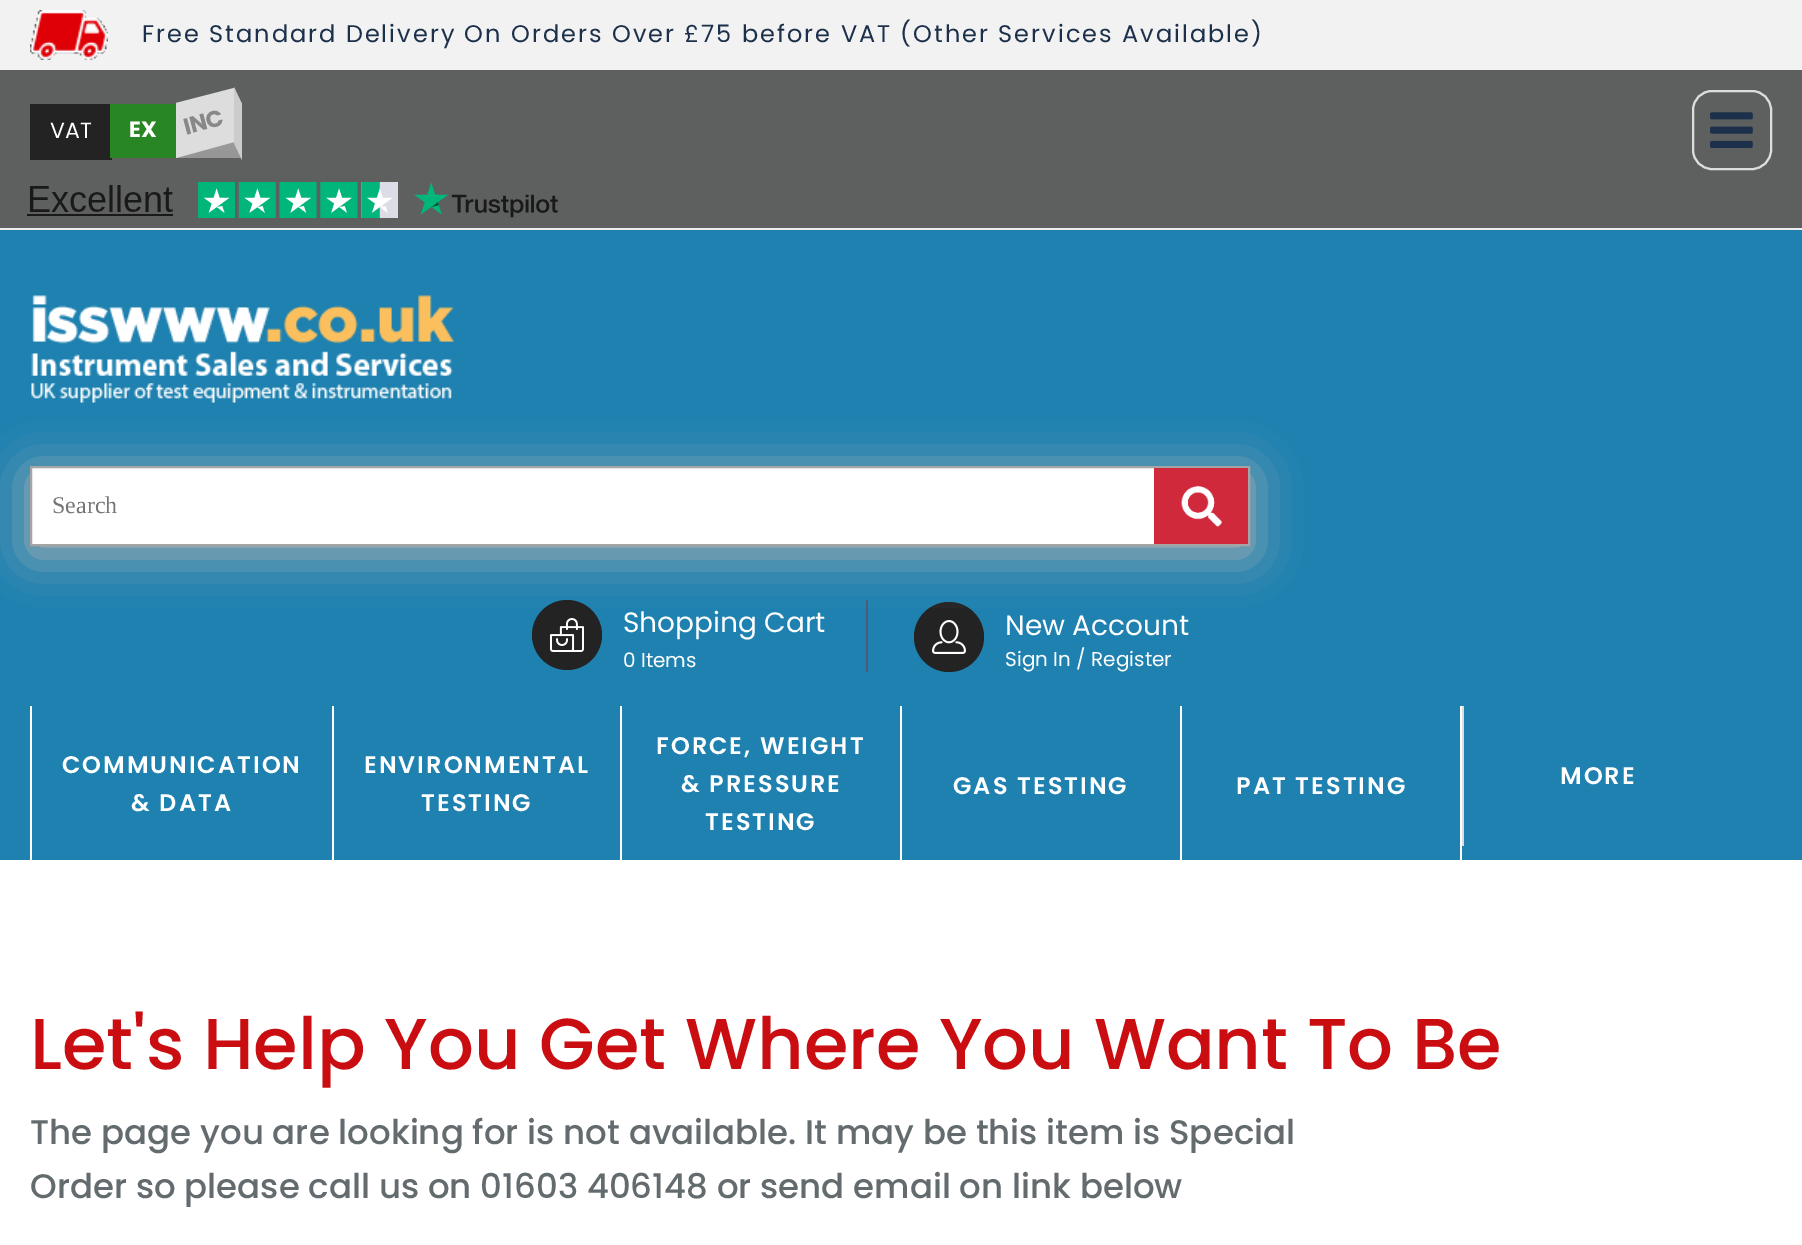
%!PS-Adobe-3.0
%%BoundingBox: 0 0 1802 1245
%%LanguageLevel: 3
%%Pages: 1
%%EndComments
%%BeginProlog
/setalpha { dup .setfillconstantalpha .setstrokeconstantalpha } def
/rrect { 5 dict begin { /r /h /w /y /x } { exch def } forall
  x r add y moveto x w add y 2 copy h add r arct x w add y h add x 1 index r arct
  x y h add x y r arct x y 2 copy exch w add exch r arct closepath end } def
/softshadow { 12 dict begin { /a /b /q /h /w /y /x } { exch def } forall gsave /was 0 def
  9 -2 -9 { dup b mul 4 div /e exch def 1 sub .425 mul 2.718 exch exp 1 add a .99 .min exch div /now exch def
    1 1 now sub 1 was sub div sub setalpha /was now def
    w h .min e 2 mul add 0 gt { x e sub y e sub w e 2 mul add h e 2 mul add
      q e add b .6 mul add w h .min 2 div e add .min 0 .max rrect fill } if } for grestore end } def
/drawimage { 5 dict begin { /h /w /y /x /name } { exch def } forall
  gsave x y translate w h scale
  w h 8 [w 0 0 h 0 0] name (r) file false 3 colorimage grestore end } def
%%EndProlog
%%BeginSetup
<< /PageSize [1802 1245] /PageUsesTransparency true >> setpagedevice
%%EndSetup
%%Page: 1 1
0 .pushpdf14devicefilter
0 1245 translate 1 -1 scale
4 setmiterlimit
1 setgray
0 0 1802 1245 rectfill
0.369 0.373 0.373 setrgbcolor
0 70 1802 158 rectfill
0.925 setgray
0 228 1802 2 rectfill
0.949 setgray
0 0 1802 70 rectfill
(images/1.raw) 30 10 78 50 drawimage
0.137 setgray
30 104 82 56 rectfill
0.157 0.525 0.141 setrgbcolor
110 104 66 54 rectfill
0.6 setgray
205 142 33 8 rectfill
0.588 setgray
176 150 66 8 rectfill
0.867 setgray
newpath 176 103 moveto 234 88 lineto 234 142 lineto 176 158 lineto closepath fill
0.8 setgray
newpath 234 87 moveto 242 104 lineto 242 160 lineto 234 143 lineto closepath fill
(images/2.raw) 26 182 532 36 drawimage
0.867 setgray
2 setlinewidth
1693 91 78 78 19 rrect stroke
(images/3.raw) 1710 112 43 36 drawimage
0.118 0.506 0.69 setrgbcolor
0 230 1802 630 rectfill
(images/4.raw) 31 295 423 108 drawimage
0.137 setgray
newpath 949 637 35 0 360 arc closepath fill
(images/7.raw) 932 620 34 34 drawimage
0.694 setgray
30 474 1220 80 0 24 1 softshadow
1 setgray
32 468 1122 76 rectfill
0.647 setgray
31 467 1218 78 rectstroke
0.816 0.161 0.235 setrgbcolor
1154 468 94 76 rectfill
(images/5.raw) 1181 486 41 41 drawimage
0.298 0.361 0.455 setrgbcolor
866 600 2 72 rectfill
0.137 setgray
newpath 567 635 35 0 360 arc closepath fill
(images/6.raw) 550 618 34 34 drawimage
1 setgray
332 706 2 154 rectfill
30 706 2 154 rectfill
620 706 2 154 rectfill
900 706 2 154 rectfill
1180 706 2 154 rectfill
1460 706 2 154 rectfill
0.867 setgray
1462 706 2 140 rectfill
/Poppins-Regular [24 0 0 -24 0 0] selectfont
0.114 0.188 0.294 setrgbcolor
142 42 moveto 2 0 (Free Standard Delivery On Orders Over £75 before VAT \(Other Services Available\)) ashow
/Poppins-Regular [22 0 0 -22 0 0] selectfont
1 setgray
50 138 moveto (VAT) show
/Poppins-Bold [22 0 0 -22 0 0] selectfont
129 137 moveto (EX) show
/Poppins-Bold [23 0 0 -23 0 0] selectfont
0.533 setgray
gsave 186 135 translate -15 rotate 0 0 moveto -0.5 0 (INC) ashow grestore
/LiberationSerif-Regular [24 0 0 -24 0 0] selectfont
0.459 setgray
52 513 moveto (Search) show
/Poppins-Regular [28 0 0 -28 0 0] selectfont
1 setgray
623 632 moveto (Shopping Cart) show
/Poppins-Regular [20 0 0 -20 0 0] selectfont
623 667 moveto (0 Items) show
/Poppins-Regular [28 0 0 -28 0 0] selectfont
1005 635 moveto (New Account) show
/Poppins-Regular [20 0 0 -20 0 0] selectfont
1005 666 moveto (Sign In / Register) show
/Poppins-SemiBold [24 0 0 -24 0 0] selectfont
62 773 moveto 2 0 (COMMUNICATION) ashow
131 811 moveto 2 0 (& DATA) ashow
364 773 moveto 2 0 (ENVIRONMENTAL) ashow
421 811 moveto 2 0 (TESTING) ashow
656 754 moveto 2 0 (FORCE, WEIGHT) ashow
681 792 moveto 2 0 (& PRESSURE) ashow
705 830 moveto 2 0 (TESTING) ashow
953 794 moveto 2 0 (GAS TESTING) ashow
1236 794 moveto 2 0 (PAT TESTING) ashow
1560 784 moveto 2 0 (MORE) ashow
/Poppins-Medium [72 0 0 -72 0 0] selectfont
0.792 0.051 0.067 setrgbcolor
30 1069 moveto (Let's Help You Get Where You Want To Be) show
/Poppins-Medium [34 0 0 -34 0 0] selectfont
0.388 0.42 0.435 setrgbcolor
30 1144 moveto (The page you are looking for is not available. It may be this item is Special) show
30 1198 moveto (Order so please call us on 01603 406148 or send email on link below) show
.poppdf14devicefilter showpage
%%EOF
